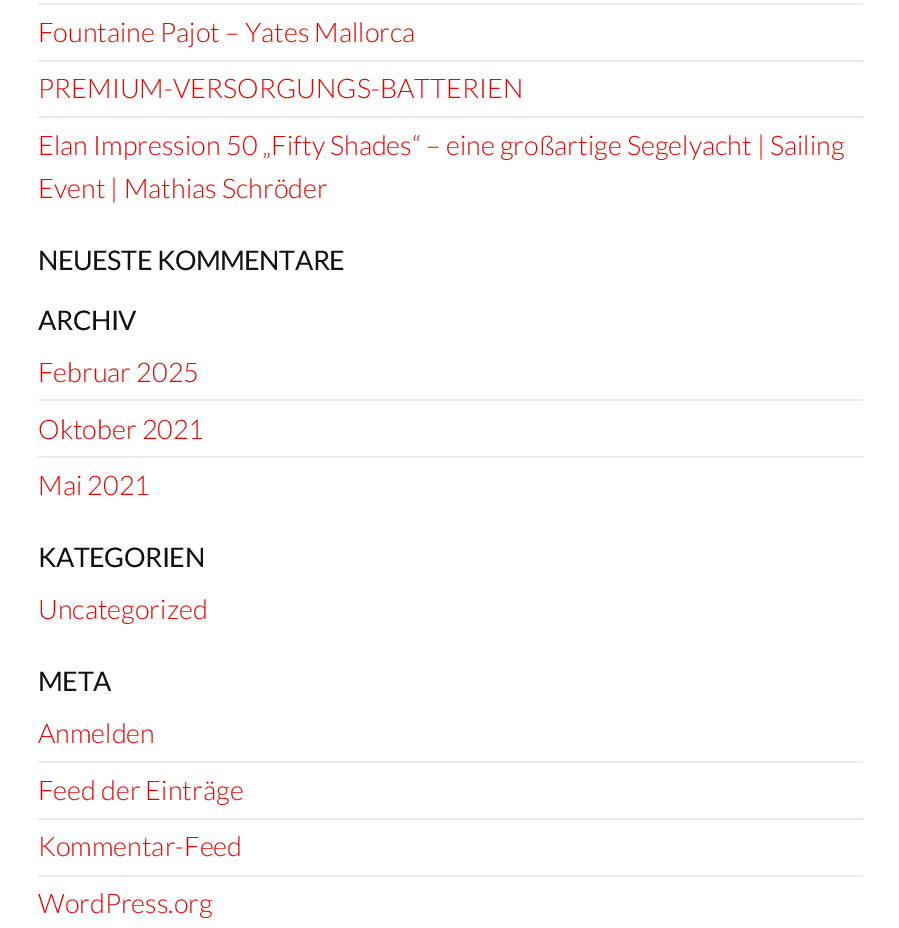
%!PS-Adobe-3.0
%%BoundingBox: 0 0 899 928
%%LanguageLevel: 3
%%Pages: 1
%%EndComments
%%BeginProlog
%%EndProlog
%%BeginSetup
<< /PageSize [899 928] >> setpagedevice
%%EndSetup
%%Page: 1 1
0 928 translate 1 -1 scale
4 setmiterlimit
1 setgray
0 0 899 928 rectfill
0.922 setgray
38 3 825 2 rectfill
38 60 825 2 rectfill
38 116 825 2 rectfill
38 399 825 2 rectfill
38 456 825 2 rectfill
38 761 825 2 rectfill
38 818 825 2 rectfill
38 875 825 2 rectfill
/Lato-Light [27 0 0 -27 0 0] selectfont
0.922 0 0 setrgbcolor
38 42 moveto (Fountaine Pajot – Yates Mallorca) show
38 98 moveto (PREMIUM-VERSORGUNGS-BATTERIEN) show
38 155 moveto (Elan Impression 50 „Fifty Shades“ – eine großartige Segelyacht | Sailing) show
38 198 moveto (Event | Mathias Schröder) show
/Lato-Regular [27 0 0 -27 0 0] selectfont
0.071 setgray
38 270 moveto -0.5 0 (NEUESTE KOMMENTARE) ashow
38 330 moveto -0.5 0 (ARCHIV) ashow
/Lato-Light [27 0 0 -27 0 0] selectfont
0.922 0 0 setrgbcolor
38 382 moveto (Februar 2025) show
38 439 moveto (Oktober 2021) show
38 495 moveto (Mai 2021) show
/Lato-Regular [27 0 0 -27 0 0] selectfont
0.071 setgray
38 567 moveto -0.5 0 (KATEGORIEN) ashow
/Lato-Light [27 0 0 -27 0 0] selectfont
0.922 0 0 setrgbcolor
38 619 moveto (Uncategorized) show
/Lato-Regular [27 0 0 -27 0 0] selectfont
0.071 setgray
38 691 moveto -0.5 0 (META) ashow
/Lato-Light [27 0 0 -27 0 0] selectfont
0.922 0 0 setrgbcolor
38 743 moveto (Anmelden) show
38 800 moveto (Feed der Einträge) show
38 856 moveto (Kommentar-Feed) show
38 913 moveto (WordPress.org) show
showpage
%%EOF
